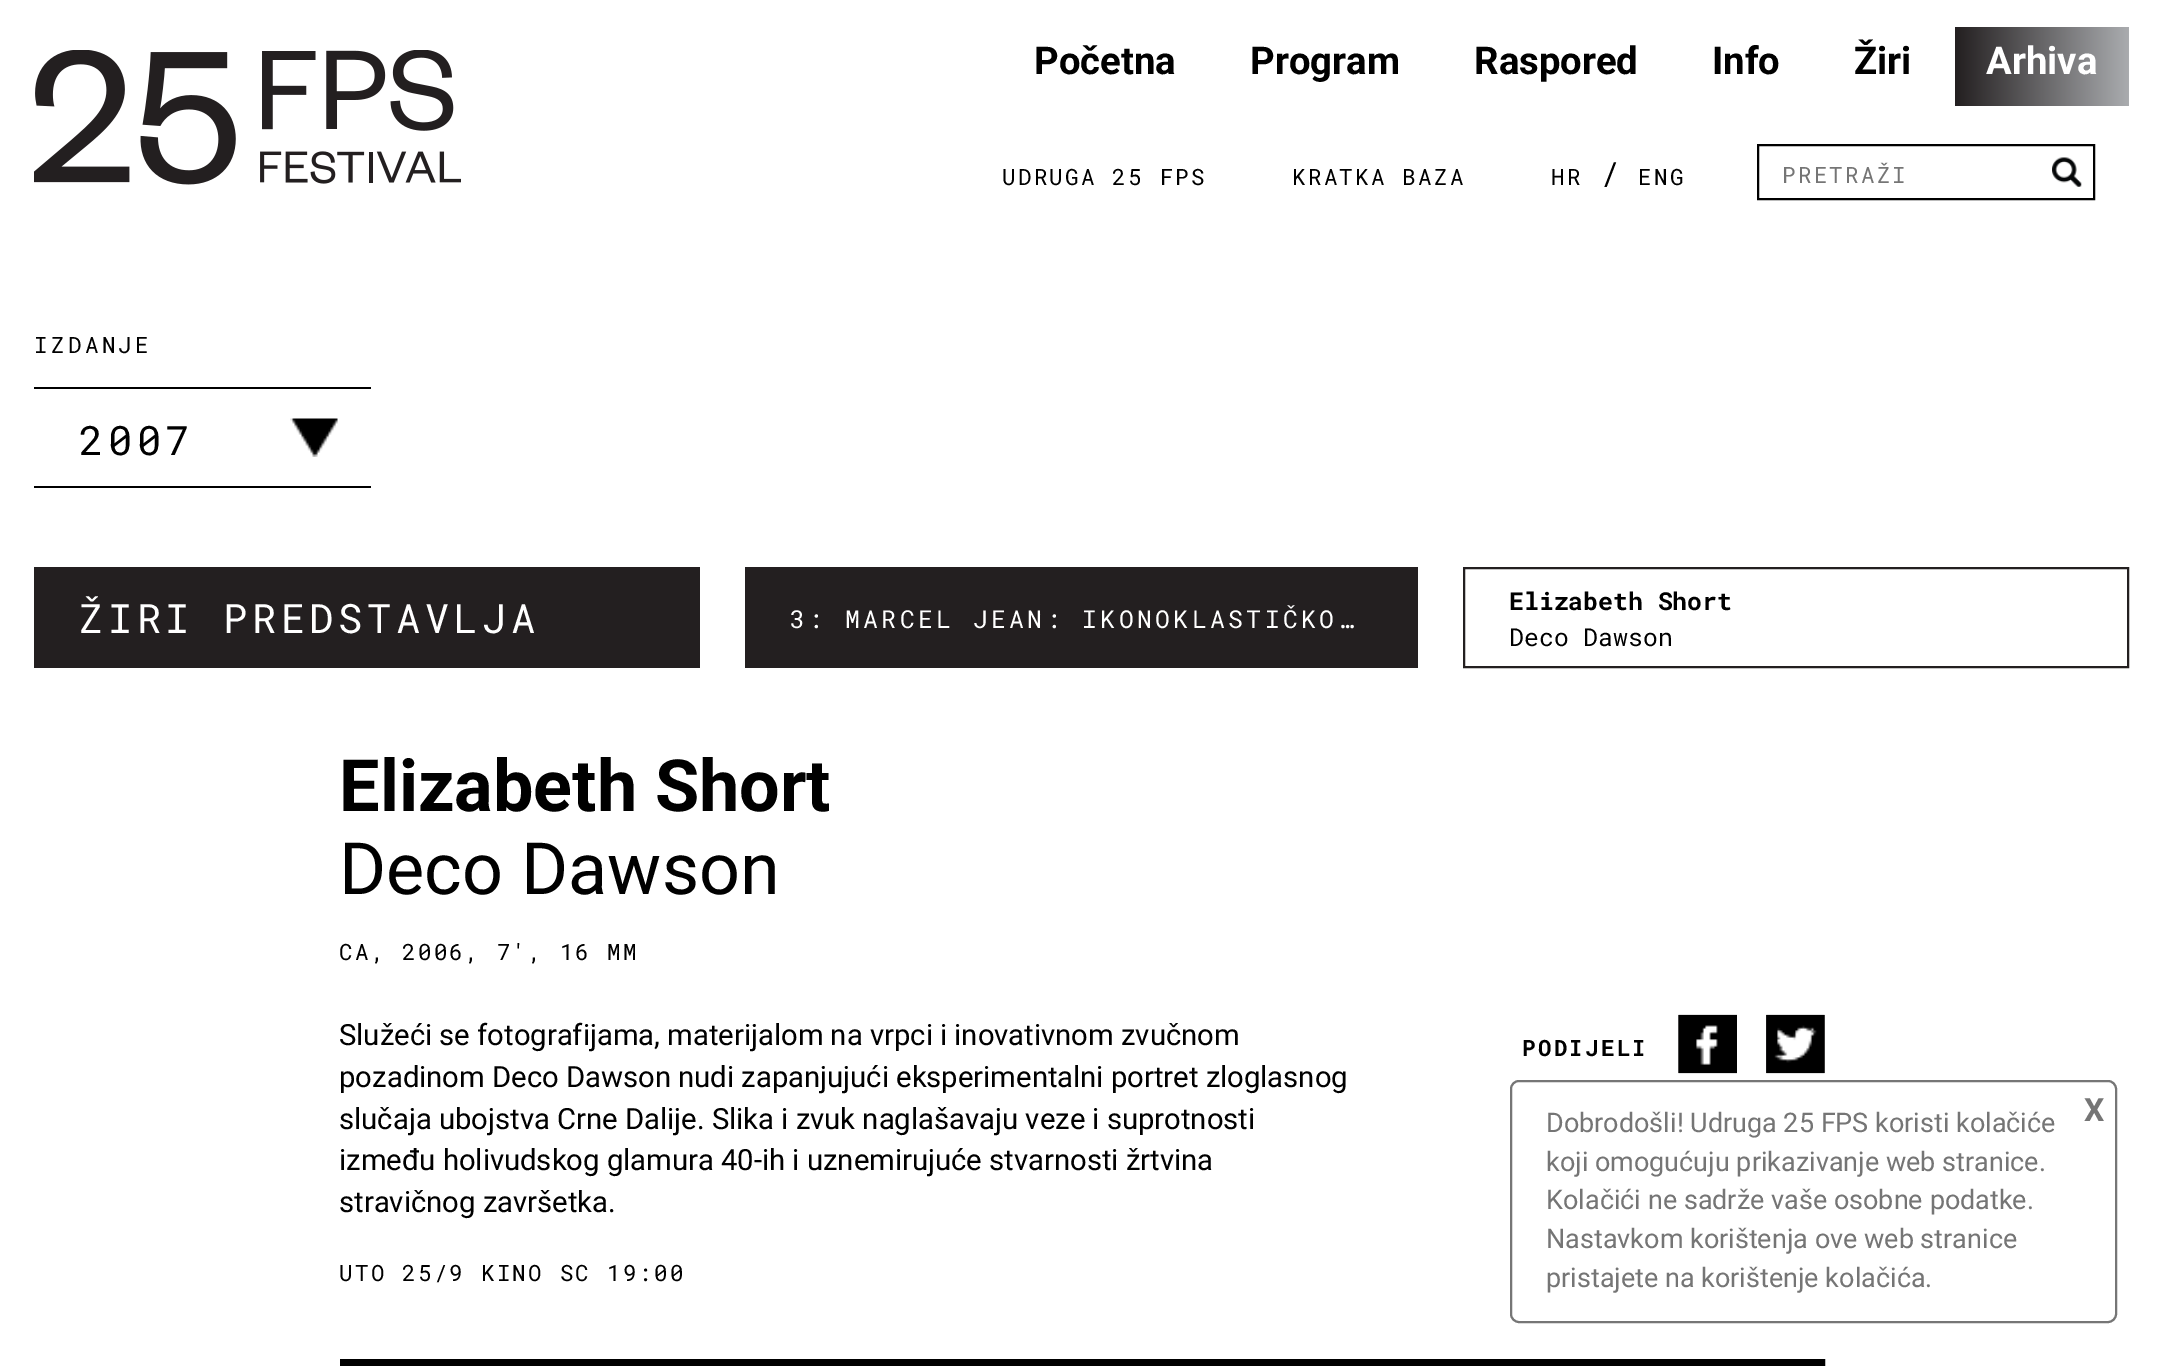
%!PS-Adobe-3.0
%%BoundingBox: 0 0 2162 1366
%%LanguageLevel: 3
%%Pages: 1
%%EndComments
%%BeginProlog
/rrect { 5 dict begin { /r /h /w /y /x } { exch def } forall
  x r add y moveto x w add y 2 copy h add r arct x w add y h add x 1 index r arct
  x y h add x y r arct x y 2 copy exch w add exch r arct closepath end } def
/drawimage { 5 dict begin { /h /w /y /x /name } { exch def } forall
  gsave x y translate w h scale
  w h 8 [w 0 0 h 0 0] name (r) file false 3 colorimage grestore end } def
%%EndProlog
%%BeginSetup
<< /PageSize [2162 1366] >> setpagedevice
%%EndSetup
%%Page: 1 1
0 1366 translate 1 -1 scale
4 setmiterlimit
1 setgray
0 0 2162 1366 rectfill
(images/1.raw) 34 50 427 135 drawimage
gsave newpath 1955 27 moveto 2129 27 lineto 2129 106 lineto 1955 106 lineto closepath clip newpath
<< /ShadingType 2 /ColorSpace /DeviceRGB /Coords [1955 66 2129 66] /Extend [true true] /Function << /FunctionType 2 /Domain [0 1] /C0 [0.137 0.122 0.125] /C1 [0.667 0.675 0.686] /N 1 >> >> shfill grestore
0 setgray
2 setlinewidth
1758 145 336 54 rectstroke
(images/2.raw) 2052 157 30 30 drawimage
34 387 337 2 rectfill
34 486 337 2 rectfill
(images/3.raw) 290 418 48 39 drawimage
0.137 0.122 0.125 setrgbcolor
34 567 666 101 rectfill
745 567 673 101 rectfill
1464 568 664 99 rectstroke
(images/4.raw) 1678 1014 59 60 drawimage
(images/5.raw) 1678 1014 59 60 drawimage
(images/6.raw) 1766 1014 59 60 drawimage
(images/7.raw) 1766 1014 59 60 drawimage
0 setgray
7 setlinewidth
343.5 1362.5 1478 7 rectstroke
0.463 setgray
2 setlinewidth
1511 1081 605 241 8 rrect stroke
/Roboto-Bold [38.25 0 0 -38.25 0 0] selectfont
0 setgray
1034 74 moveto (Početna) show
1250 74 moveto (Program) show
1474 74 moveto (Raspored) show
1712 74 moveto (Info) show
1854 74 moveto (Žiri) show
1 setgray
1986 74 moveto (Arhiva) show
/RobotoMono-Regular [22.5 0 0 -22.5 0 0] selectfont
0 setgray
1002 185 moveto 2.25 0 (UDRUGA 25 FPS) ashow
1292 185 moveto 2.25 0 (KRATKA BAZA) ashow
1551 185 moveto 2.25 0 (HR) ashow
/Roboto-Regular [32 0 0 -32 0 0] selectfont
1604 185 moveto (/) show
/RobotoMono-Regular [22.5 0 0 -22.5 0 0] selectfont
1638 185 moveto 2.25 0 (ENG) ashow
0.459 setgray
1782 183 moveto 2.25 0 (PRETRAŽI) ashow
0 setgray
34 353 moveto 3.4 0 (IZDANJE) ashow
/RobotoMono-Regular [40.5 0 0 -40.5 0 0] selectfont
79 455 moveto 4.5 0 (2007) ashow
1 setgray
79 633 moveto 4.5 0 (ŽIRI PREDSTAVLJA) ashow
/RobotoMono-Regular [24.75 0 0 -24.75 0 0] selectfont
790 628 moveto 3.4 0 (3: MARCEL JEAN: IKONOKLASTIČKO…) ashow
/RobotoMono-Bold [24.75 0 0 -24.75 0 0] selectfont
0 setgray
1509 610 moveto (Elizabeth Short) show
/RobotoMono-Regular [24.75 0 0 -24.75 0 0] selectfont
1509 646 moveto (Deco Dawson) show
/Roboto-Bold [72 0 0 -72 0 0] selectfont
339 811 moveto (Elizabeth Short) show
/Roboto-Regular [72 0 0 -72 0 0] selectfont
339 894 moveto (Deco Dawson) show
/RobotoMono-Regular [22.5 0 0 -22.5 0 0] selectfont
339 960 moveto 2.25 0 (CA, 2006, 7', 16 MM) ashow
/Roboto-Regular [29.25 0 0 -29.25 0 0] selectfont
339 1045 moveto (Služeći se fotografijama, materijalom na vrpci i inovativnom zvučnom) show
339 1087 moveto (pozadinom Deco Dawson nudi zapanjujući eksperimentalni portret zloglasnog) show
339 1129 moveto (slučaja ubojstva Crne Dalije. Slika i zvuk naglašavaju veze i suprotnosti) show
339 1170 moveto (između holivudskog glamura 40-ih i uznemirujuće stvarnosti žrtvina) show
339 1212 moveto (stravičnog završetka.) show
/RobotoMono-Regular [22.5 0 0 -22.5 0 0] selectfont
339 1281 moveto 2.25 0 (UTO 25/9 KINO SC 19:00) ashow
/RobotoMono-Bold [22.5 0 0 -22.5 0 0] selectfont
1522 1056 moveto 2.25 0 (PODIJELI) ashow
/Roboto-Regular [27 0 0 -27 0 0] selectfont
0.459 setgray
1546 1132 moveto (Dobrodošli! Udruga 25 FPS koristi kolačiće) show
1546 1171 moveto (koji omogućuju prikazivanje web stranice.) show
1546 1209 moveto (Kolačići ne sadrže vaše osobne podatke.) show
1546 1248 moveto (Nastavkom korištenja ove web stranice) show
1546 1287 moveto (pristajete na korištenje kolačića.) show
/Roboto-Bold [32 0 0 -32 0 0] selectfont
2084 1121 moveto (X) show
showpage
%%EOF
